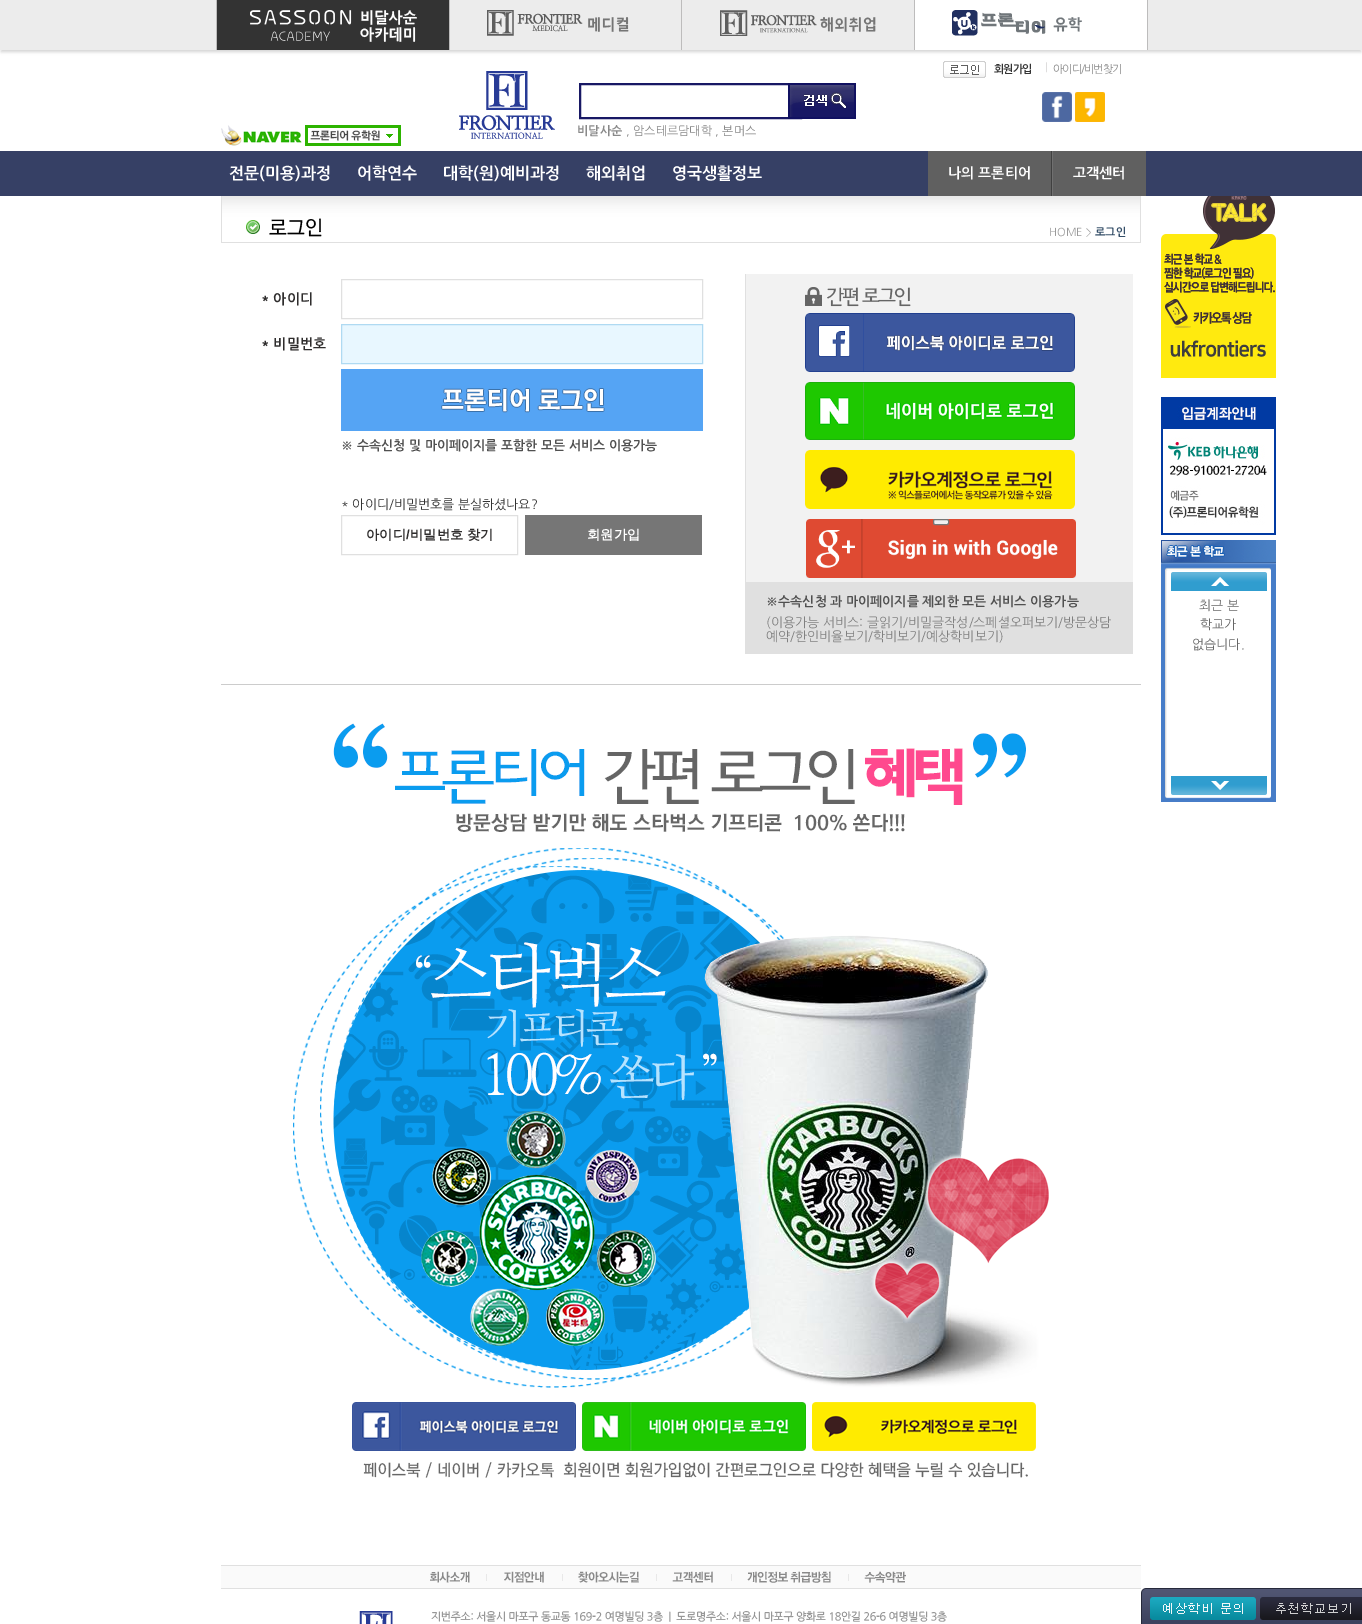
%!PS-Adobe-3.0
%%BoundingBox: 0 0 1362 1624
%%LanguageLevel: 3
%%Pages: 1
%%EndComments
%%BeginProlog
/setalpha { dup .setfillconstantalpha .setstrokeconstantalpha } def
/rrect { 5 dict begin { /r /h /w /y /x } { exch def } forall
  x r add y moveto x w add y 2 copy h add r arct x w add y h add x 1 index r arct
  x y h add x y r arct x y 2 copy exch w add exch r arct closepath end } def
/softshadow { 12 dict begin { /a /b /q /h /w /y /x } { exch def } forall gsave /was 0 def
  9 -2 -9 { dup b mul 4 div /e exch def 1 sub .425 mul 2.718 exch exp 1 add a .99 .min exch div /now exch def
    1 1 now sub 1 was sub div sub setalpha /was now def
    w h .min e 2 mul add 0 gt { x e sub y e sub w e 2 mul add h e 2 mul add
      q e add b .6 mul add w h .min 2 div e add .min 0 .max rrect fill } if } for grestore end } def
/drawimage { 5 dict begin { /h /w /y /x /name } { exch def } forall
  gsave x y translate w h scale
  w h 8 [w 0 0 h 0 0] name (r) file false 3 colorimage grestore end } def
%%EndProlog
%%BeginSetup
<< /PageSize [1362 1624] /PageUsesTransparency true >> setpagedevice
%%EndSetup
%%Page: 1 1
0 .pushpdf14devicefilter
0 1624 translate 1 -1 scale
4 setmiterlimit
1 setgray
0 0 1362 1624 rectfill
0 setgray
1 4 1360 48 0 1.5 0.16 softshadow
0.925 setgray
0 0 1362 50 rectfill
0.2 setgray
217 0 232 50 rectfill
0.741 0.737 0.737 setrgbcolor
216 0 1 50 rectfill
(images/1.raw) 250 10 167 32 drawimage
449 0 1 50 rectfill
(images/2.raw) 487 10 142 26 drawimage
681 0 1 50 rectfill
(images/3.raw) 720 10 156 26 drawimage
1 setgray
915 0 232 50 rectfill
0.741 0.737 0.737 setrgbcolor
1147 0 1 50 rectfill
914 0 1 50 rectfill
(images/4.raw) 952 10 130 26 drawimage
(images/5.raw) 943 61 43 17 drawimage
(images/6.raw) 459 71 96 68 drawimage
(images/7.raw) 1042 92 30 30 drawimage
(images/8.raw) 1075 92 30 30 drawimage
(images/9.raw) 221 125 180 21 drawimage
0.094 0.094 0.392 setrgbcolor
2 setlinewidth
580 84 221 34 rectstroke
(images/10.raw) 788 83 68 36 drawimage
0.212 0.251 0.396 setrgbcolor
0 151 1362 45 rectfill
0.376 setgray
928 151 218 45 rectfill
0.251 setgray
1051 151 1 45 rectfill
0.439 setgray
1052 151 1 45 rectfill
(images/11.raw) 221 196 920 47 drawimage
(images/12.raw) 246 220 14 14 drawimage
(images/13.raw) 269 218 53 19 drawimage
0.878 setgray
1 setlinewidth
341.5 279.5 361 39 rectstroke
0.91 0.969 1 setrgbcolor
newpath 341.5 324.5 moveto 702.5 324.5 lineto 702.5 363.5 lineto 341.5 363.5 lineto closepath gsave fill grestore
0.686 0.855 0.949 setrgbcolor
stroke
(images/14.raw) 341 369 362 62 drawimage
0.878 setgray
341.5 515.5 176 39 rectstroke
0.463 setgray
525 515 177 40 rectfill
0.949 setgray
746 274 387 308 rectfill
0.878 setgray
745 274 1 380 rectfill
(images/15.raw) 805 287 106 20 drawimage
(images/16.raw) 805 313 270 59 drawimage
(images/17.raw) 805 382 270 58 drawimage
(images/18.raw) 805 450 270 59 drawimage
(images/19.raw) 806 519 270 59 drawimage
0.937 setgray
933.5 519.5 15 5 1.5 rrect gsave fill grestore
0.463 setgray
stroke
0.878 setgray
746 582 387 72 rectfill
0.8 setgray
221 684 920 1 rectfill
(images/20.raw) 293 723 756 755 drawimage
(images/21.raw) 1161 196 115 182 drawimage
(images/22.raw) 1161 397 115 138 drawimage
(images/23.raw) 1161 540 115 22 drawimage
(images/24.raw) 1161 562 115 240 drawimage
(images/25.raw) 1171 572 96 19 drawimage
(images/26.raw) 1171 776 96 19 drawimage
(images/27.raw) 221 1565 920 59 drawimage
(images/28.raw) 1141 1588 221 36 drawimage
/NanumGothic-Bold [11 0 0 -11 0 0] selectfont
0.2 setgray
994 73 moveto -1 0 (회원가입) ashow
/NanumGothic-Regular [11 0 0 -11 0 0] selectfont
0.824 0.82 0.82 setrgbcolor
1045 71 moveto (|) show
0.537 setgray
1053 73 moveto -1 0 (아이디/비번찾기) ashow
/NanumGothic-Bold [12 0 0 -12 0 0] selectfont
577 135 moveto (비달사순) show
/NanumGothic-Regular [12 0 0 -12 0 0] selectfont
626 135 moveto (, 암스테르담대학 , 본머스) show
/NanumGothic-Bold [16 0 0 -16 0 0] selectfont
1 setgray
229 179 moveto (전문\(미용\)과정) show
357 179 moveto (어학연수) show
443 179 moveto (대학\(원\)예비과정) show
586 179 moveto (해외취업) show
672 179 moveto (영국생활정보) show
/NanumGothic-Bold [14 0 0 -14 0 0] selectfont
948 178 moveto (나의 프론티어) show
1073 178 moveto (고객센터) show
/NanumGothic-Regular [11 0 0 -11 0 0] selectfont
0.6 setgray
1049 236 moveto (HOME) show
/NanumGothic-Regular [10 0 0 -10 0 0] selectfont
1086 236 moveto (>) show
/NanumGothic-Bold [11 0 0 -11 0 0] selectfont
0.204 0.306 0.408 setrgbcolor
1095 236 moveto (로그인) show
/NanumGothic-Bold [14 0 0 -14 0 0] selectfont
0.184 0.176 0.176 setrgbcolor
261 304 moveto (* 아이디) show
261 349 moveto (* 비밀번호) show
/NanumGothic-Bold [12.9 0 0 -12.9 0 0] selectfont
0.314 setgray
341 450 moveto (※ 수속신청 및 마이페이지를 포함한 모든 서비스 이용가능) show
/NanumGothic-Regular [12.9 0 0 -12.9 0 0] selectfont
0.2 setgray
341 509 moveto (* 아이디/비밀번호를 분실하셨나요?) show
/WenQuanYiZenHei-Bold [13.25 0 0 -13.25 0 0] selectfont
0.184 0.176 0.176 setrgbcolor
366 539 moveto (아이디) show
/LiberationSans-Bold [13.25 0 0 -13.25 0 0] selectfont
406 539 moveto (/) show
/WenQuanYiZenHei-Bold [13.25 0 0 -13.25 0 0] selectfont
410 539 moveto (비밀번호 찾기) show
1 setgray
587 539 moveto (회원가입) show
/NanumGothic-Bold [12.9 0 0 -12.9 0 0] selectfont
0.314 setgray
766 606 moveto (※수속신청 과 마이페이지를 제외한 모든 서비스 이용가능) show
/NanumGothic-Regular [12.9 0 0 -12.9 0 0] selectfont
0.502 setgray
766 627 moveto (\(이용가능 서비스: 글읽기/비밀글작성/스페셜오퍼보기/방문상담) show
766 641 moveto (예약/한인비율보기/학비보기/예상학비보기\)) show
0.4 setgray
1199 610 moveto (최근 본) show
1200 629 moveto (학교가) show
1192 649 moveto (없습니다.) show
.poppdf14devicefilter showpage
%%EOF
